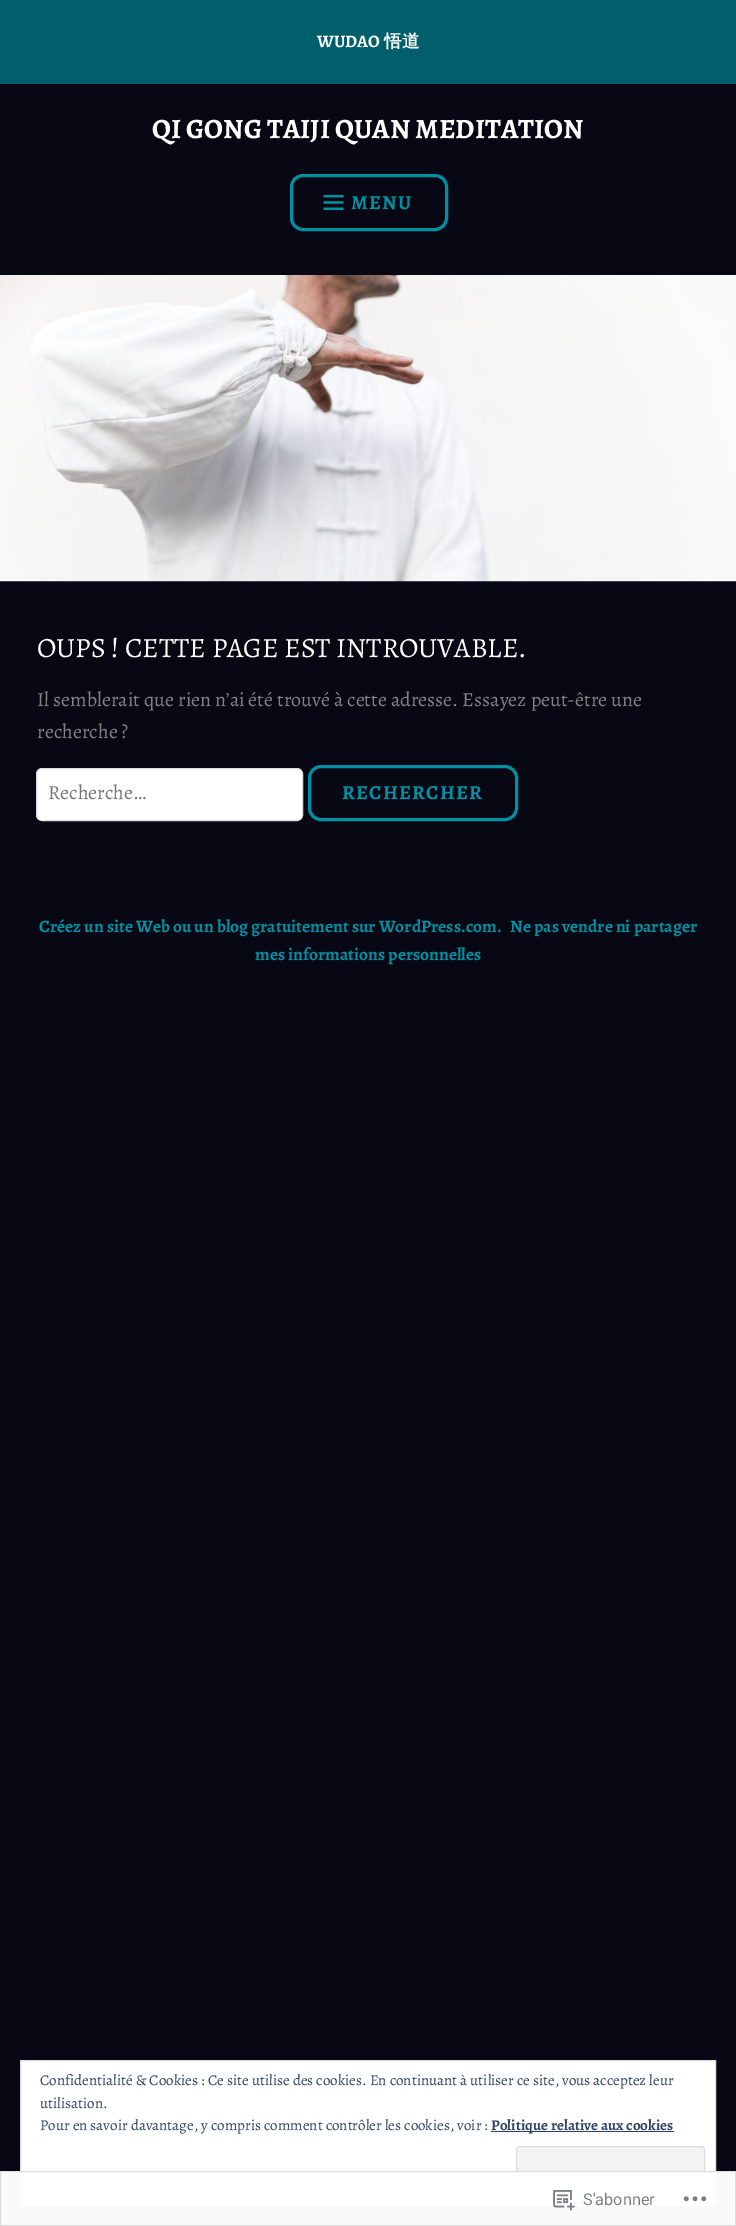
%!PS-Adobe-3.0
%%BoundingBox: 0 0 736 2226
%%LanguageLevel: 3
%%Pages: 1
%%EndComments
%%BeginProlog
/setalpha { dup .setfillconstantalpha .setstrokeconstantalpha } def
/rrect { 5 dict begin { /r /h /w /y /x } { exch def } forall
  x r add y moveto x w add y 2 copy h add r arct x w add y h add x 1 index r arct
  x y h add x y r arct x y 2 copy exch w add exch r arct closepath end } def
/drawimage { 5 dict begin { /h /w /y /x /name } { exch def } forall
  gsave x y translate w h scale
  w h 8 [w 0 0 h 0 0] name (r) file false 3 colorimage grestore end } def
%%EndProlog
%%BeginSetup
<< /PageSize [736 2226] /PageUsesTransparency true >> setpagedevice
%%EndSetup
%%Page: 1 1
0 .pushpdf14devicefilter
0 2226 translate 1 -1 scale
4 setmiterlimit
0.031 0.031 0.078 setrgbcolor
0 0 736 2226 rectfill
0 0.373 0.42 setrgbcolor
0 0 736 84 rectfill
0 0.565 0.639 setrgbcolor
3 setlinewidth
291.5 175.5 155 54 11.5 rrect stroke
(images/1.raw) 323 195 21 15 drawimage
(images/2.raw) 0 275 736 307 drawimage
1 setgray
36.5 768.5 266 52 5.5 rrect gsave fill grestore
0.867 setgray
1 setlinewidth
stroke
0 0.565 0.639 setrgbcolor
3 setlinewidth
309.5 766.5 207 53 11.5 rrect stroke
1 setgray
newpath 20.5 2060.5 moveto 715.5 2060.5 lineto 715.5 2205.5 lineto 20.5 2205.5 lineto closepath gsave fill grestore
0.871 setgray
1 setlinewidth
stroke
0.18 0.267 0.404 setrgbcolor
491 2131 183 1 rectfill
0.953 setgray
516.5 2146.5 188 48 3.5 rrect gsave fill grestore
0.871 setgray
stroke
0.98 setalpha
1 setgray
0 2171 736 55 rectfill
0.863 0.863 0.871 setrgbcolor
0.5 2171.5 735 54 rectstroke
1 setalpha
(images/3.raw) 553 2190 22 21 drawimage
(images/4.raw) 683 2196 24 6 drawimage
/Alegreya-Bold [17.5 0 0 -17.5 0 0] selectfont
1 setgray
317 47 moveto (WUDAO) show
/WenQuanYiZenHei-Bold [17.5 0 0 -17.5 0 0] selectfont
384 47 moveto (悟道) show
/Alegreya-Bold [28 0 0 -28 0 0] selectfont
152 138 moveto (QI GONG TAIJI QUAN MEDITATION) show
/Alegreya-Bold [20 0 0 -20 0 0] selectfont
0 0.565 0.639 setrgbcolor
351 209 moveto 1.25 0 (MENU) ashow
/Alegreya-Regular [28 0 0 -28 0 0] selectfont
1 setgray
37 657 moveto (OUPS ! CETTE PAGE EST INTROUVABLE.) show
/Alegreya-Regular [20 0 0 -20 0 0] selectfont
0.51 setgray
37 706 moveto (Il semblerait que rien n’ai été trouvé à cette adresse. Essayez peut-être une) show
37 738 moveto (recherche ?) show
0.459 setgray
48 799 moveto (Recherche…) show
/Alegreya-Bold [20 0 0 -20 0 0] selectfont
0 0.565 0.639 setrgbcolor
342 799 moveto 1.25 0 (RECHERCHER) ashow
/Alegreya-Bold [17.5 0 0 -17.5 0 0] selectfont
39 932 moveto (Créez un site Web ou un blog gratuitement sur WordPress.com.) show
510 932 moveto (Ne pas vendre ni partager) show
255 960 moveto (mes informations personnelles) show
/Alegreya-Regular [15 0 0 -15 0 0] selectfont
0.18 0.267 0.404 setrgbcolor
40 2085 moveto (Confidentialité & Cookies : Ce site utilise des cookies. En continuant à utiliser ce site, vous acceptez leur) show
40 2108 moveto (utilisation.) show
40 2130 moveto (Pour en savoir davantage, y compris comment contrôler les cookies, voir :) show
/Alegreya-Bold [15 0 0 -15 0 0] selectfont
491 2130 moveto (Politique relative aux cookies) show
/Roboto-Regular [16.25 0 0 -16.25 0 0] selectfont
0.482 0.498 0.518 setrgbcolor
583 2205 moveto (S'abonner) show
.poppdf14devicefilter showpage
%%EOF
